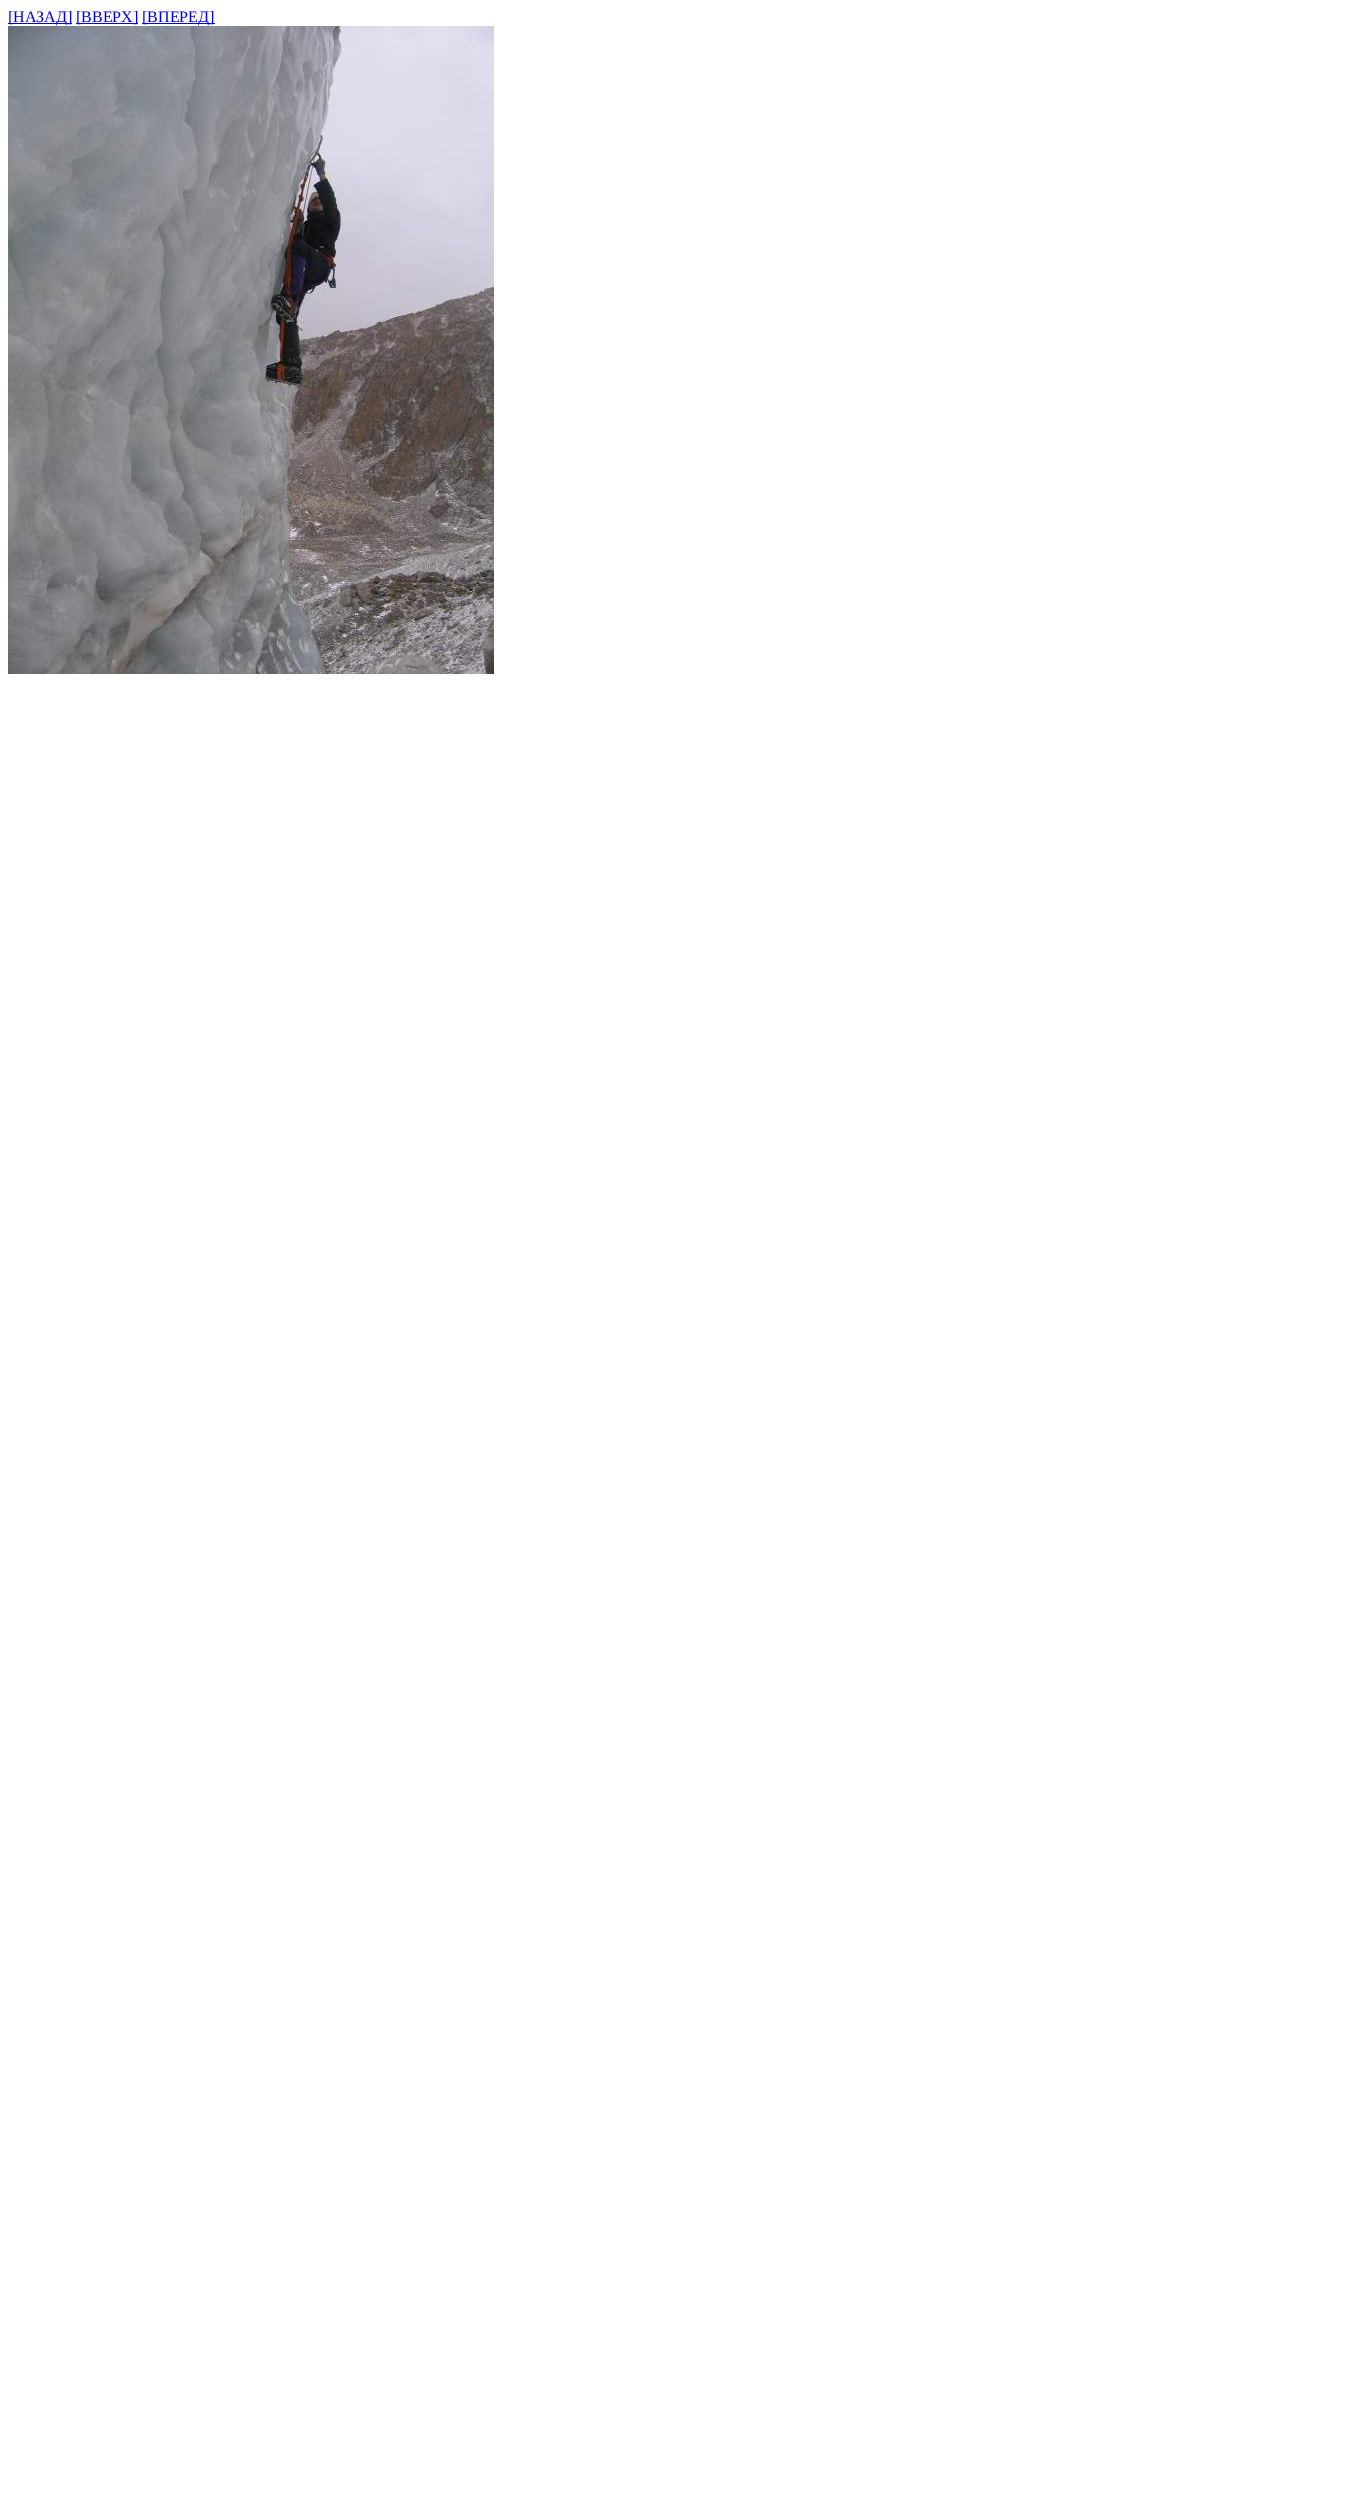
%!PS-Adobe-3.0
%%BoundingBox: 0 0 1363 2515
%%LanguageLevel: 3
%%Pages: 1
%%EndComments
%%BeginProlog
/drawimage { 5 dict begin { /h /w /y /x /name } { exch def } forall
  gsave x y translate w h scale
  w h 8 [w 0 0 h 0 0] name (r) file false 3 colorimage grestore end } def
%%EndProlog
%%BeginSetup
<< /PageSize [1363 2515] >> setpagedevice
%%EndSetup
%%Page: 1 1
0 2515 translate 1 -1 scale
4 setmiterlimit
1 setgray
0 0 1363 2515 rectfill
0 0 0.933 setrgbcolor
8 23 64 1 rectfill
76 23 62 1 rectfill
142 23 73 1 rectfill
(images/1.raw) 8 26 486 648 drawimage
/LiberationSerif-Regular [16 0 0 -16 0 0] selectfont
8 22 moveto ([НАЗАД]) show
76 22 moveto ([ВВЕРХ]) show
142 22 moveto ([ВПЕРЕД]) show
showpage
%%EOF
